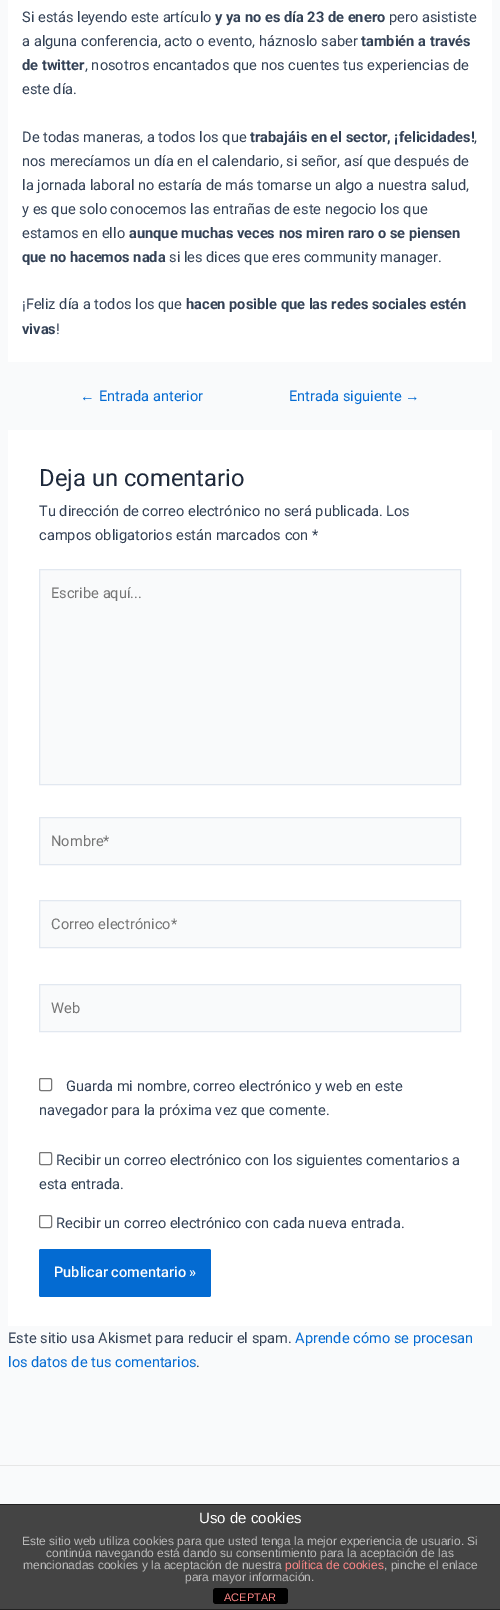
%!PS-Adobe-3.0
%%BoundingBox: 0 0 500 1610
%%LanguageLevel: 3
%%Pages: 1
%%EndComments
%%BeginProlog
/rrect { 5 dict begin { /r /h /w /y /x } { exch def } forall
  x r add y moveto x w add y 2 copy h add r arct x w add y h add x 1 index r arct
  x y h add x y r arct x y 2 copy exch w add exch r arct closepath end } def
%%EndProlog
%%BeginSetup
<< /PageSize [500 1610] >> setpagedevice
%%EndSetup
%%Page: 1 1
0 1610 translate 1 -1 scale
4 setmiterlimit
0.976 0.98 0.984 setrgbcolor
0 0 500 1610 rectfill
1 setgray
8 0 484 362 rectfill
8 430 484 896 rectfill
0.976 0.98 0.984 setrgbcolor
newpath 39.5 569.5 moveto 460.5 569.5 lineto 460.5 784.5 lineto 39.5 784.5 lineto closepath gsave fill grestore
0.886 0.91 0.941 setrgbcolor
stroke
0.976 0.98 0.984 setrgbcolor
newpath 39.5 817.5 moveto 460.5 817.5 lineto 460.5 864.5 lineto 39.5 864.5 lineto closepath gsave fill grestore
0.886 0.91 0.941 setrgbcolor
stroke
0.976 0.98 0.984 setrgbcolor
newpath 39.5 900.5 moveto 460.5 900.5 lineto 460.5 947.5 lineto 39.5 947.5 lineto closepath gsave fill grestore
0.886 0.91 0.941 setrgbcolor
stroke
0.976 0.98 0.984 setrgbcolor
newpath 39.5 984.5 moveto 460.5 984.5 lineto 460.5 1031.5 lineto 39.5 1031.5 lineto closepath gsave fill grestore
0.886 0.91 0.941 setrgbcolor
stroke
0.463 setgray
39.5 1078.5 12 12 1.5 rrect stroke
39.5 1152.5 12 12 1.5 rrect stroke
39.5 1215.5 12 12 1.5 rrect stroke
0.016 0.42 0.824 setrgbcolor
39 1249 172 48 2 rrect fill
0.902 setgray
0 1465 500 1 rectfill
0.267 setgray
0 1505 500 104 rectfill
0.133 setgray
0 1504 500 1 rectfill
0 1609 500 1 rectfill
0 setgray
213 1588 75 16 3 rrect fill
/Roboto-Regular [14.6 0 0 -14.6 0 0] selectfont
0.2 0.255 0.333 setrgbcolor
22 22 moveto (Si estás leyendo este artículo) show
/Roboto-Bold [14.6 0 0 -14.6 0 0] selectfont
215 22 moveto (y ya no es día 23 de enero) show
/Roboto-Regular [14.6 0 0 -14.6 0 0] selectfont
389 22 moveto (pero asististe) show
22 46 moveto (a alguna conferencia, acto o evento, háznoslo saber) show
/Roboto-Bold [14.6 0 0 -14.6 0 0] selectfont
361 46 moveto (también a través) show
22 70 moveto (de twitter) show
/Roboto-Regular [14.6 0 0 -14.6 0 0] selectfont
85 70 moveto (, nosotros encantados que nos cuentes tus experiencias de) show
22 94 moveto (este día.) show
22 142 moveto (De todas maneras, a todos los que) show
/Roboto-Bold [14.6 0 0 -14.6 0 0] selectfont
250 142 moveto (trabajáis en el sector, ¡felicidades!) show
/Roboto-Regular [14.6 0 0 -14.6 0 0] selectfont
474 142 moveto (,) show
22 166 moveto (nos merecíamos un día en el calendario, si señor, así que después de) show
22 190 moveto (la jornada laboral no estaría de más tomarse un algo a nuestra salud,) show
22 214 moveto (y es que solo conocemos las entrañas de este negocio los que) show
22 238 moveto (estamos en ello) show
/Roboto-Bold [14.6 0 0 -14.6 0 0] selectfont
129 238 moveto (aunque muchas veces nos miren raro o se piensen) show
22 262 moveto (que no hacemos nada) show
/Roboto-Regular [14.6 0 0 -14.6 0 0] selectfont
169 262 moveto (si les dices que eres community manager.) show
22 309 moveto (¡Feliz día a todos los que) show
/Roboto-Bold [14.6 0 0 -14.6 0 0] selectfont
186 309 moveto (hacen posible que las redes sociales estén) show
22 334 moveto (vivas) show
/Roboto-Regular [14.6 0 0 -14.6 0 0] selectfont
56 334 moveto (!) show
/LiberationSans-Regular [14.6 0 0 -14.6 0 0] selectfont
0.016 0.42 0.824 setrgbcolor
80 401 moveto (←) show
/Roboto-Regular [14.6 0 0 -14.6 0 0] selectfont
99 401 moveto (Entrada anterior) show
289 401 moveto (Entrada siguiente) show
/LiberationSans-Regular [14.6 0 0 -14.6 0 0] selectfont
405 401 moveto (→) show
/Roboto-Regular [23.75 0 0 -23.75 0 0] selectfont
0.118 0.161 0.231 setrgbcolor
39 486 moveto (Deja un comentario) show
/Roboto-Regular [14.6 0 0 -14.6 0 0] selectfont
0.2 0.255 0.333 setrgbcolor
39 516 moveto (Tu dirección de correo electrónico no será publicada. Los) show
39 540 moveto (campos obligatorios están marcados con *) show
0.459 setgray
51 598 moveto (Escribe aquí...) show
51 846 moveto (Nombre*) show
51 929 moveto (Correo electrónico*) show
51 1013 moveto (Web) show
0.2 0.255 0.333 setrgbcolor
66 1091 moveto (Guarda mi nombre, correo electrónico y web en este) show
39 1115 moveto (navegador para la próxima vez que comente.) show
56 1165 moveto (Recibir un correo electrónico con los siguientes comentarios a) show
39 1189 moveto (esta entrada.) show
56 1228 moveto (Recibir un correo electrónico con cada nueva entrada.) show
/Roboto-Medium [14.6 0 0 -14.6 0 0] selectfont
1 setgray
54 1277 moveto (Publicar comentario ») show
/Roboto-Regular [14.6 0 0 -14.6 0 0] selectfont
0.2 0.255 0.333 setrgbcolor
8 1343 moveto (Este sitio usa Akismet para reducir el spam.) show
0.016 0.42 0.824 setrgbcolor
295 1343 moveto (Aprende cómo se procesan) show
8 1367 moveto (los datos de tus comentarios) show
0.2 0.255 0.333 setrgbcolor
196 1367 moveto (.) show
/LiberationSans-Regular [15 0 0 -15 0 0] selectfont
1 setgray
199 1523 moveto (Uso de cookies) show
/LiberationSans-Regular [12 0 0 -12 0 0] selectfont
0.733 setgray
22 1545 moveto (Este sitio web utiliza cookies para que usted tenga la mejor experiencia de usuario. Si) show
46 1557 moveto (continúa navegando está dando su consentimiento para la aceptación de las) show
23 1569 moveto (mencionadas cookies y la aceptación de nuestra) show
1 0.533 0.533 setrgbcolor
285 1569 moveto (política de cookies) show
0.733 setgray
384 1569 moveto (, pinche el enlace) show
185 1581 moveto (para mayor información.) show
/LiberationSans-Regular [11 0 0 -11 0 0] selectfont
1 0.533 0.533 setrgbcolor
224 1601 moveto (ACEPTAR) show
showpage
%%EOF
